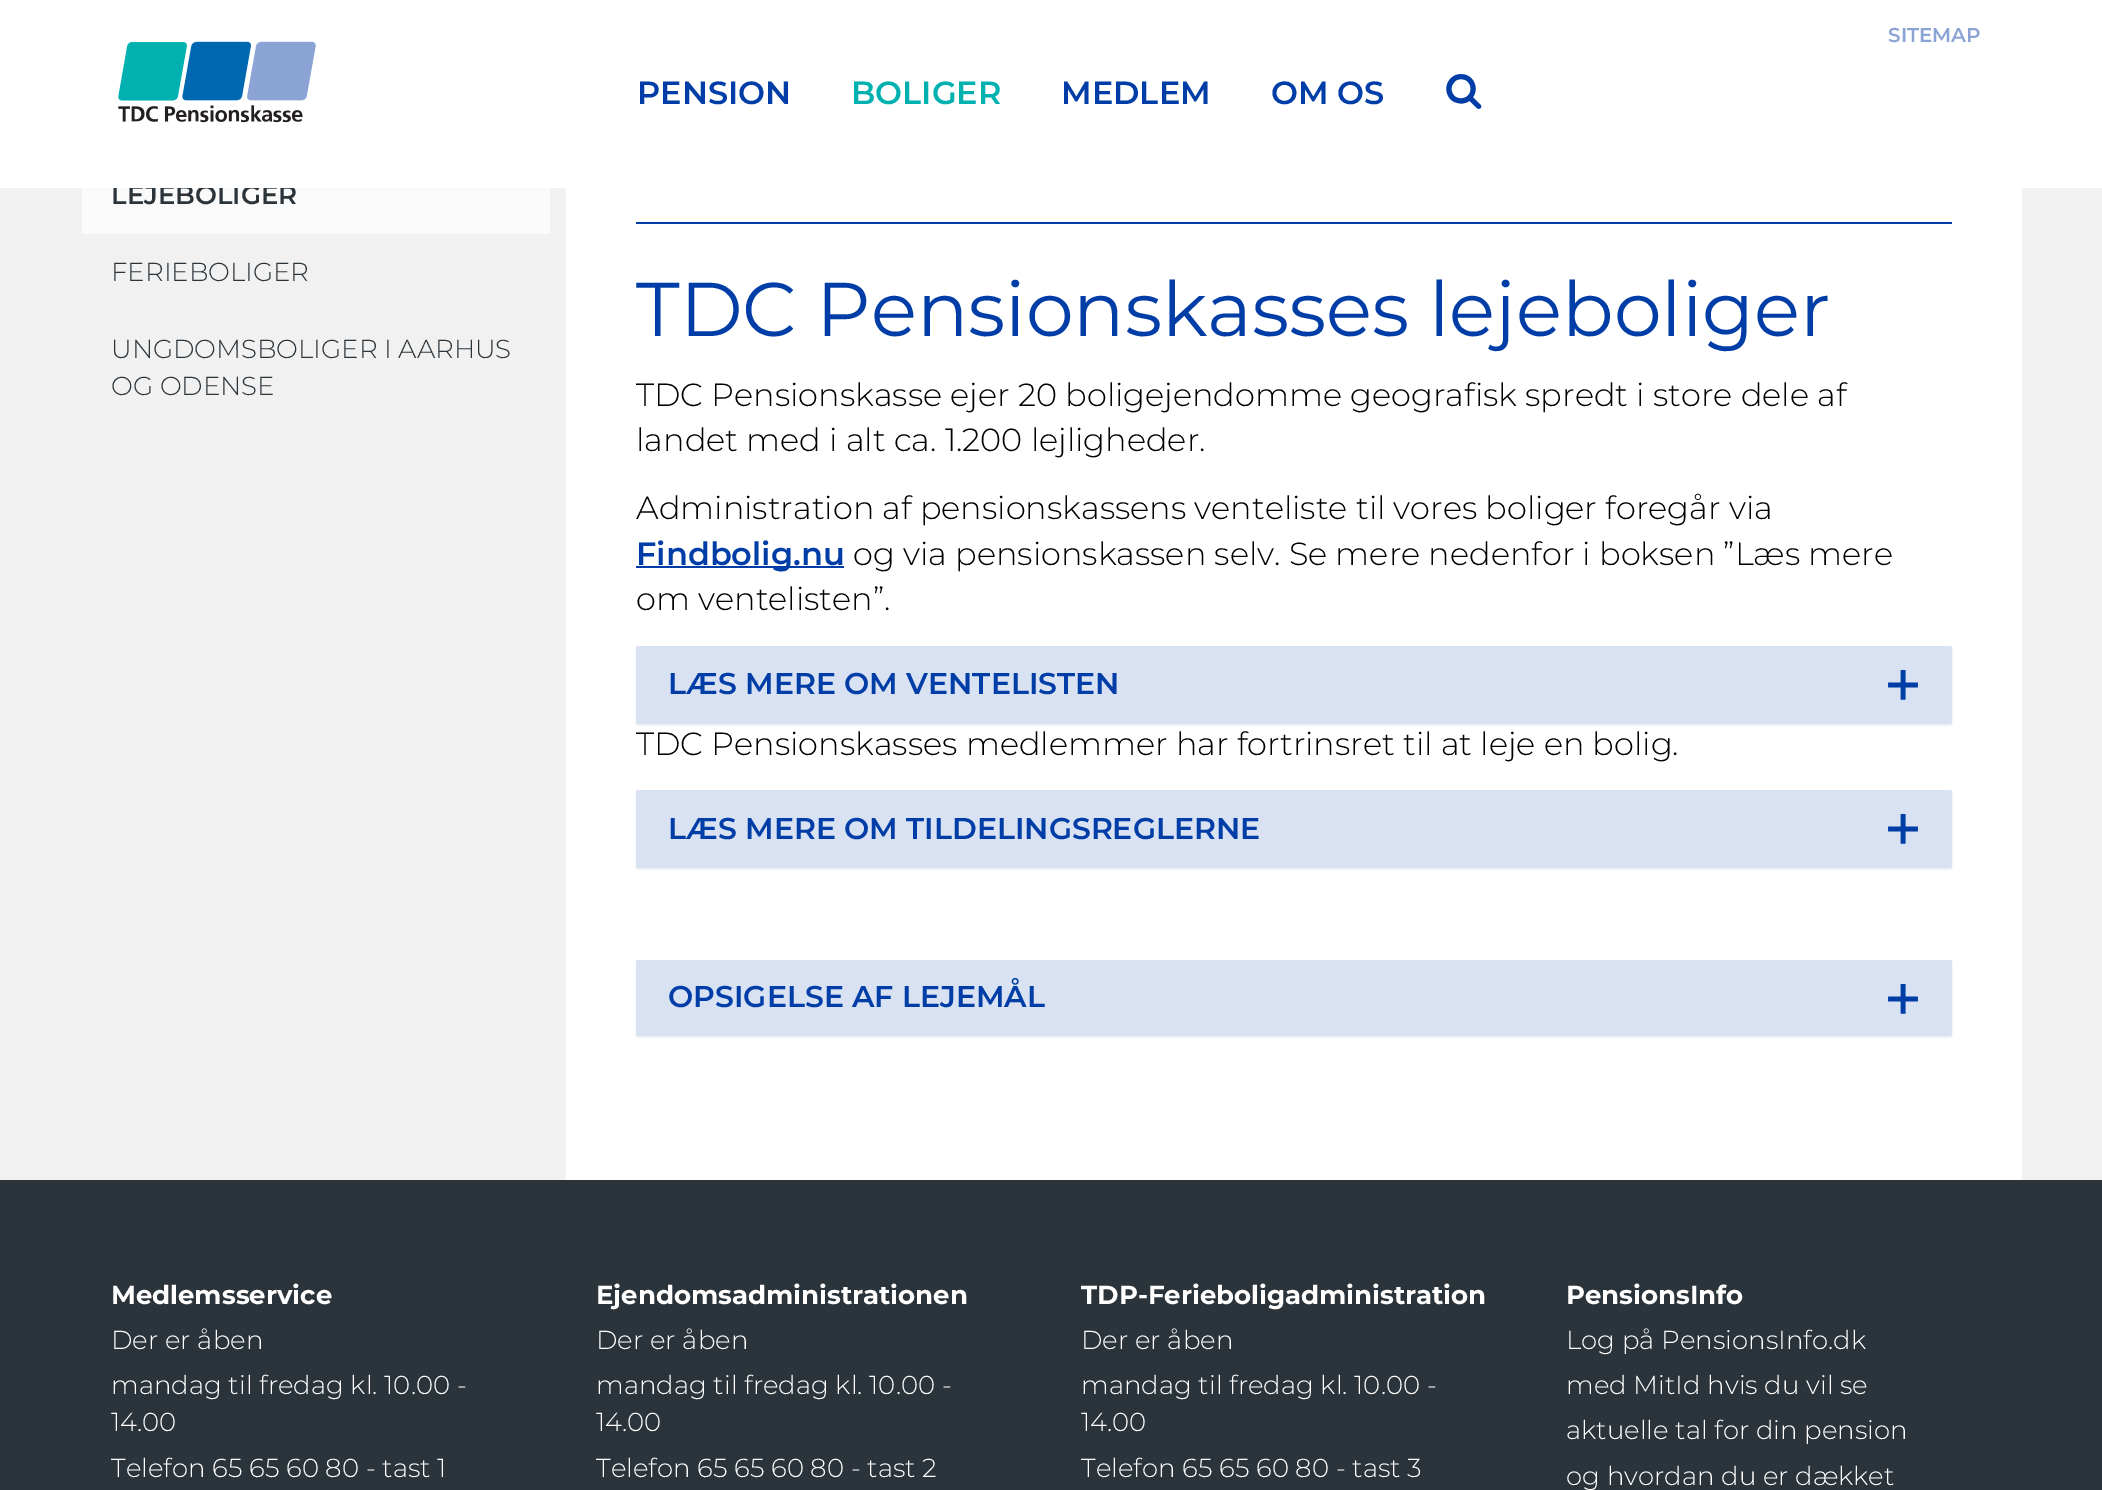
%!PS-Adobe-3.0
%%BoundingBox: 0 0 2102 1490
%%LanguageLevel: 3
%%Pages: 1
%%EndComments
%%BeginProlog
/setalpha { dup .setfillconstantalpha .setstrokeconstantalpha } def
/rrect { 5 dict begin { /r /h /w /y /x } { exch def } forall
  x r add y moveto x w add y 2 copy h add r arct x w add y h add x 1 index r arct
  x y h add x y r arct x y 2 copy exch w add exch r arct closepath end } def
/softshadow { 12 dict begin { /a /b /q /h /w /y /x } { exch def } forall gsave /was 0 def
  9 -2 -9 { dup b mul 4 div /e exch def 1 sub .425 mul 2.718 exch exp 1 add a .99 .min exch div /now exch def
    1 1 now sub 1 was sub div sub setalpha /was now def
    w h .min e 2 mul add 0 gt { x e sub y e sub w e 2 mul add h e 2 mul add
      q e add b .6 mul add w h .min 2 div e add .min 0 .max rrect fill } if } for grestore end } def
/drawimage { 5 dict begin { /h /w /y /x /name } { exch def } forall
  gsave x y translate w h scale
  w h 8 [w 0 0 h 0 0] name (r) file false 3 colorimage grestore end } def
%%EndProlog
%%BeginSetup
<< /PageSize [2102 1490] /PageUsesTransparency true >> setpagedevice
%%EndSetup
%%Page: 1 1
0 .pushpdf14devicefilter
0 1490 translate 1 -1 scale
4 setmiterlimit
0.945 setgray
0 0 2102 1490 rectfill
0.98 setgray
82 188 468 46 rectfill
1 setgray
566 188 1456 992 rectfill
0 0.239 0.651 setrgbcolor
636 222 1316 2 rectfill
636 566 208 2 rectfill
0 setgray
636 648 1316 78 2 1 0.05 softshadow
0.851 0.886 0.949 setrgbcolor
2 setlinewidth
637 647 1314 76 1 rrect stroke
638 648 1312 74 rectfill
(images/3.raw) 1888 670 30 30 drawimage
0 setgray
636 792 1316 78 2 1 0.05 softshadow
0.851 0.886 0.949 setrgbcolor
637 791 1314 76 1 rrect stroke
638 792 1312 74 rectfill
(images/3.raw) 1888 814 30 30 drawimage
0 setgray
636 962 1316 76 2 1 0.05 softshadow
0.851 0.886 0.949 setrgbcolor
637 961 1314 74 1 rrect stroke
638 962 1312 72 rectfill
(images/3.raw) 1888 984 30 30 drawimage
0.169 0.204 0.227 setrgbcolor
0 1180 2102 310 rectfill
/Montserrat-SemiBold [26 0 0 -26 0 0] selectfont
111 204 moveto (LEJEBOLIGER) show
1 setgray
0 0 2102 188 rectfill
/Montserrat-SemiBold [20 0 0 -20 0 0] selectfont
0.549 0.643 0.835 setrgbcolor
1888 42 moveto (SITEMAP) show
(images/2.raw) 1446 74 36 35 drawimage
/Montserrat-SemiBold [32 0 0 -32 0 0] selectfont
0 0.239 0.651 setrgbcolor
1271 104 moveto (OM OS) show
1061 104 moveto (MEDLEM) show
0 0.694 0.69 setrgbcolor
851 104 moveto (BOLIGER) show
0 0.239 0.651 setrgbcolor
637 104 moveto (PENSION) show
(images/1.raw) 118 41 198 82 drawimage
/Montserrat-Light [26 0 0 -26 0 0] selectfont
0.169 0.204 0.227 setrgbcolor
111 281 moveto (FERIEBOLIGER) show
111 358 moveto (UNGDOMSBOLIGER I AARHUS) show
111 395 moveto (OG ODENSE) show
/Montserrat-Regular [76 0 0 -76 0 0] selectfont
0 0.239 0.651 setrgbcolor
636 336 moveto (TDC Pensionskasses lejeboliger) show
/Montserrat-Light [32 0 0 -32 0 0] selectfont
0 setgray
636 406 moveto (TDC Pensionskasse ejer 20 boligejendomme geografisk spredt i store dele af) show
636 451 moveto (landet med i alt ca. 1.200 lejligheder.) show
636 519 moveto (Administration af pensionskassens venteliste til vores boliger foregår via) show
/Montserrat-SemiBold [32 0 0 -32 0 0] selectfont
0 0.239 0.651 setrgbcolor
636 565 moveto (Findbolig.nu) show
/Montserrat-Light [32 0 0 -32 0 0] selectfont
0 setgray
853 565 moveto (og via pensionskassen selv. Se mere nedenfor i boksen ”Læs mere) show
636 610 moveto (om ventelisten”.) show
/Montserrat-SemiBold [30 0 0 -30 0 0] selectfont
0 0.239 0.651 setrgbcolor
668 694 moveto (LÆS MERE OM VENTELISTEN) show
/Montserrat-Light [32 0 0 -32 0 0] selectfont
0 setgray
636 755 moveto (TDC Pensionskasses medlemmer har fortrinsret til at leje en bolig.) show
/Montserrat-SemiBold [30 0 0 -30 0 0] selectfont
0 0.239 0.651 setrgbcolor
668 839 moveto (LÆS MERE OM TILDELINGSREGLERNE) show
668 1007 moveto (OPSIGELSE AF LEJEMÅL) show
/Montserrat-Bold [26 0 0 -26 0 0] selectfont
1 setgray
111 1304 moveto (Medlemsservice) show
/Montserrat-Light [26 0 0 -26 0 0] selectfont
111 1349 moveto (Der er åben) show
111 1394 moveto (mandag til fredag kl. 10.00 -) show
111 1431 moveto (14.00) show
111 1477 moveto (Telefon 65 65 60 80 - tast 1) show
/Montserrat-Bold [26 0 0 -26 0 0] selectfont
596 1304 moveto (Ejendomsadministrationen) show
/Montserrat-Light [26 0 0 -26 0 0] selectfont
596 1349 moveto (Der er åben) show
596 1394 moveto (mandag til fredag kl. 10.00 -) show
596 1431 moveto (14.00) show
596 1477 moveto (Telefon 65 65 60 80 - tast 2) show
/Montserrat-Bold [26 0 0 -26 0 0] selectfont
1081 1304 moveto (TDP-Ferieboligadministration) show
/Montserrat-Light [26 0 0 -26 0 0] selectfont
1081 1349 moveto (Der er åben) show
1081 1394 moveto (mandag til fredag kl. 10.00 -) show
1081 1431 moveto (14.00) show
1081 1477 moveto (Telefon 65 65 60 80 - tast 3) show
/Montserrat-Bold [26 0 0 -26 0 0] selectfont
1566 1304 moveto (PensionsInfo) show
/Montserrat-Light [26 0 0 -26 0 0] selectfont
1566 1349 moveto (Log på PensionsInfo.dk) show
1566 1394 moveto (med MitId hvis du vil se) show
1566 1439 moveto (aktuelle tal for din pension) show
1566 1485 moveto (og hvordan du er dækket) show
.poppdf14devicefilter showpage
%%EOF
